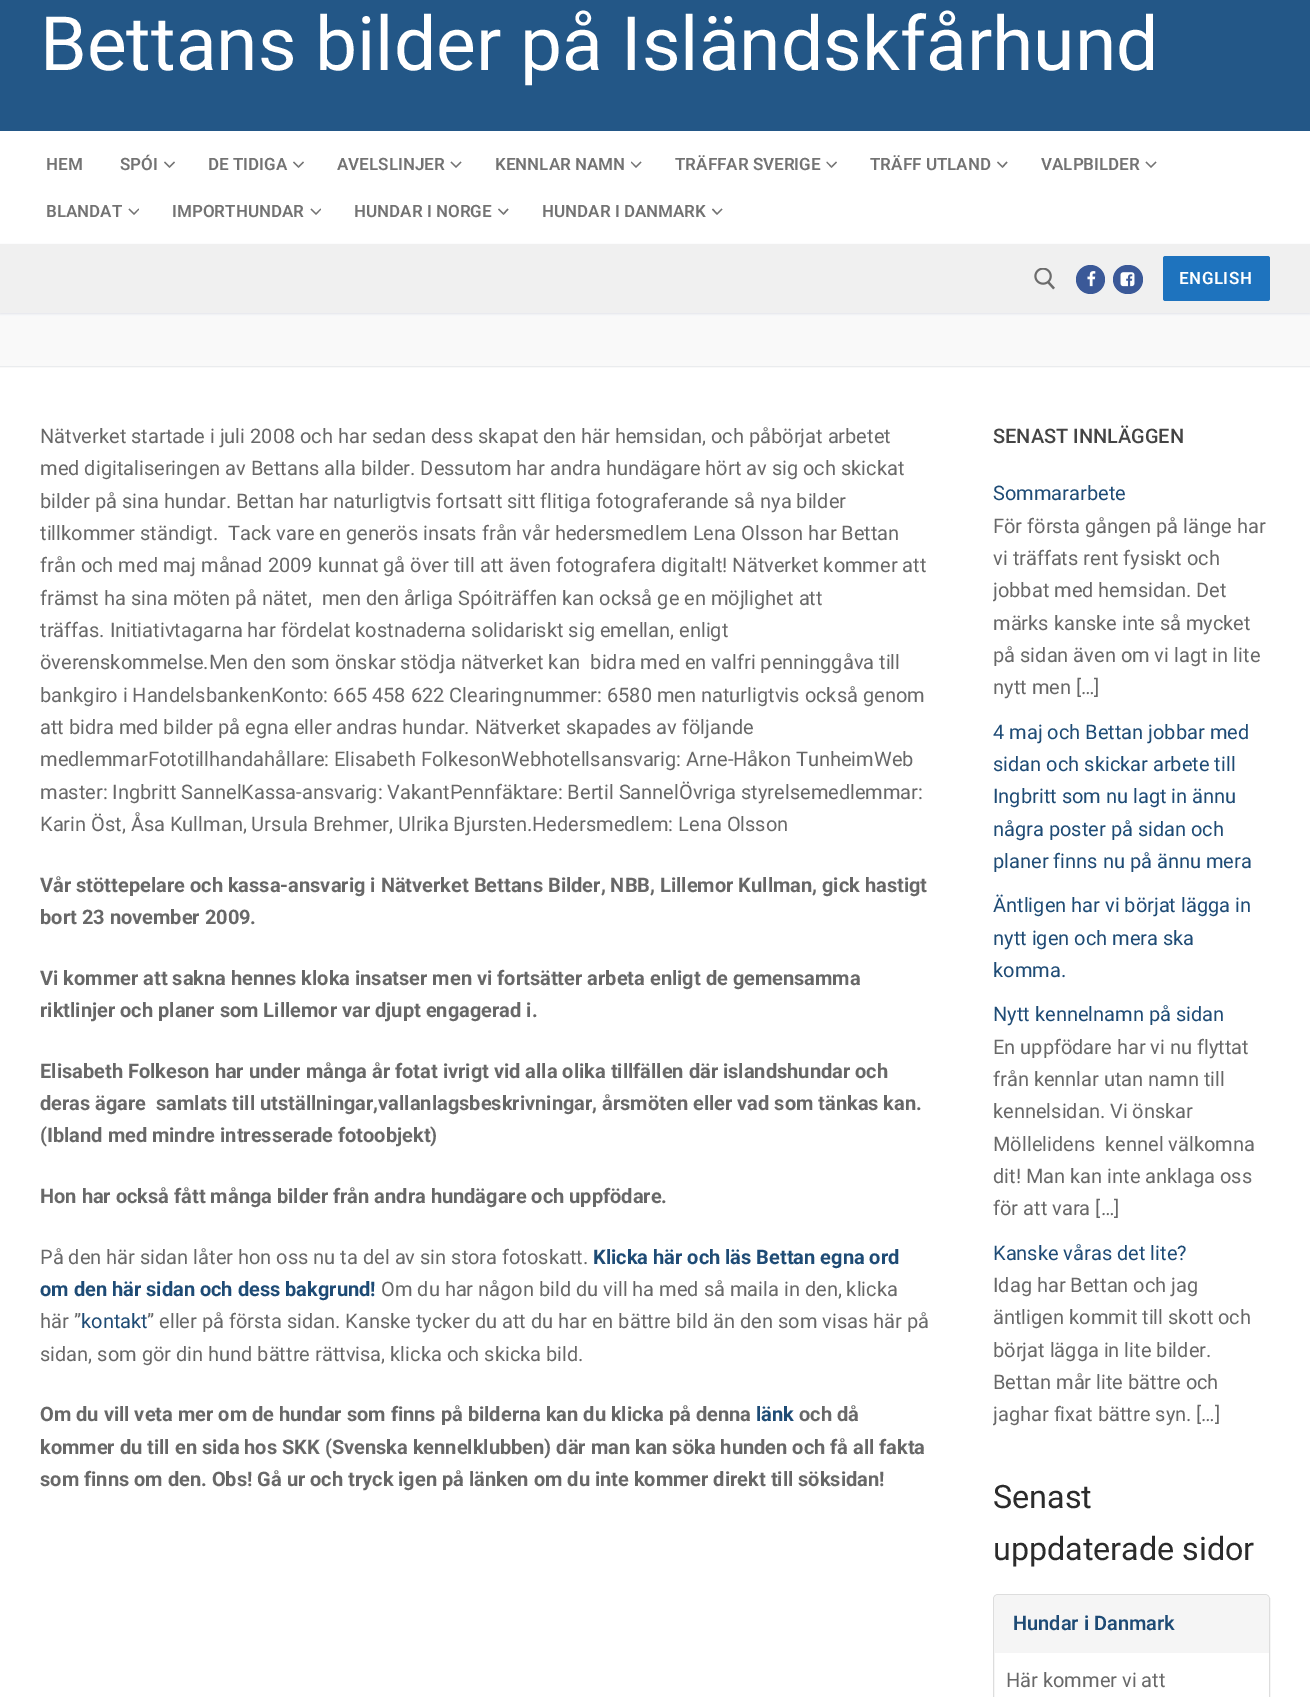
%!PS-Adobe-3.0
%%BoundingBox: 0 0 1310 1697
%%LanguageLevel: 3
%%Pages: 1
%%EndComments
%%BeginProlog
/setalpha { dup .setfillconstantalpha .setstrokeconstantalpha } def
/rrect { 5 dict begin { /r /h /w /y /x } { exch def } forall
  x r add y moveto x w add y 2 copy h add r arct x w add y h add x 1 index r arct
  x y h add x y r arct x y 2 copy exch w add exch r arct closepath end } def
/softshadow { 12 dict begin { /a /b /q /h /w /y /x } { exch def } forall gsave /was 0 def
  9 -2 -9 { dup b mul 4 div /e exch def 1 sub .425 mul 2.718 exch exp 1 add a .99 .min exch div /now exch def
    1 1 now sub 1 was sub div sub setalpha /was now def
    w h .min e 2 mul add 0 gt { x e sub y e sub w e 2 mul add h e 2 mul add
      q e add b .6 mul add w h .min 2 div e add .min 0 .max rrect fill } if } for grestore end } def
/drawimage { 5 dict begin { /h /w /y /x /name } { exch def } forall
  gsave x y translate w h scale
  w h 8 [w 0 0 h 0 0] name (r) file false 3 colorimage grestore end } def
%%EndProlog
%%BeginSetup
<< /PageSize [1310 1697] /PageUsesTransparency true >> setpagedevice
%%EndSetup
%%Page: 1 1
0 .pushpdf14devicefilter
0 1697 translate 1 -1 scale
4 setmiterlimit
1 setgray
0 0 1310 1697 rectfill
0.137 0.341 0.529 setrgbcolor
0 0 1310 131 rectfill
0.451 setgray
newpath 169.5 168 moveto 164 162.5 lineto 165 161.5 lineto 169.5 166 lineto closepath fill
0.55 setalpha
0 setgray
newpath 175 162.5 moveto 169.5 168 lineto 169.5 166 lineto 174 161.5 lineto closepath fill
1 setalpha
0.451 setgray
newpath 298.5 168 moveto 293 162.5 lineto 294 161.5 lineto 298.5 166 lineto closepath fill
0.55 setalpha
0 setgray
newpath 304 162.5 moveto 298.5 168 lineto 298.5 166 lineto 303 161.5 lineto closepath fill
1 setalpha
0.451 setgray
newpath 456 168 moveto 450.5 162.5 lineto 451.5 161.5 lineto 456 166 lineto closepath 461.5 162.5 moveto 456 168 lineto 456 166 lineto 460.5 161.5 lineto closepath fill
newpath 636 168 moveto 631 162.5 lineto 631.5 161.5 lineto 636 166 lineto closepath 641.5 162.5 moveto 636 168 lineto 636 166 lineto 640.5 161.5 lineto closepath fill
newpath 831.5 168 moveto 826.5 162.5 lineto 827 161.5 lineto 831.5 166 lineto closepath fill
0.55 setalpha
0 setgray
newpath 837 162.5 moveto 831.5 168 lineto 831.5 166 lineto 836 161.5 lineto closepath fill
1 setalpha
0.451 setgray
newpath 1002.5 168 moveto 997 162.5 lineto 998 161.5 lineto 1002.5 166 lineto closepath fill
0.55 setalpha
0 setgray
newpath 1007.5 162.5 moveto 1002.5 168 lineto 1002.5 166 lineto 1006.5 161.5 lineto closepath fill
1 setalpha
0.451 setgray
newpath 1151 168 moveto 1145.5 162.5 lineto 1146.5 161.5 lineto 1151 166 lineto closepath 1156.5 162.5 moveto 1151 168 lineto 1151 166 lineto 1155.5 161.5 lineto closepath fill
newpath 134 215 moveto 128.5 209.5 lineto 129.5 208.5 lineto 134 213 lineto closepath 139 209.5 moveto 134 215 lineto 134 213 lineto 138.5 208.5 lineto closepath fill
newpath 316 215 moveto 310.5 209.5 lineto 311.5 208.5 lineto 316 213 lineto closepath 321 209.5 moveto 316 215 lineto 316 213 lineto 320.5 208.5 lineto closepath fill
newpath 503.5 215 moveto 498 209.5 lineto 499 208.5 lineto 503.5 213 lineto closepath fill
0.55 setalpha
0 setgray
newpath 508.5 209.5 moveto 503.5 215 lineto 503.5 213 lineto 507.5 208.5 lineto closepath fill
1 setalpha
0.451 setgray
newpath 717 215 moveto 712 209.5 lineto 713 208.5 lineto 717 213 lineto closepath 722.5 209.5 moveto 717 215 lineto 717 213 lineto 721.5 208.5 lineto closepath fill
0.976 setgray
0 313 1310 55 rectfill
0.882 0.898 0.918 setrgbcolor
0 245 1310 69 0 1 1 softshadow
0.941 setgray
0 244 1310 69 rectfill
(images/1.raw) 1034 268 21 22 drawimage
0.231 0.349 0.596 setrgbcolor
newpath 1090.5 279.5 14.5 0 360 arc closepath fill
(images/2.raw) 1087 271 9 16 drawimage
1113 265 30 29 14.5 rrect fill
(images/3.raw) 1120 272 15 15 drawimage
0.118 0.451 0.745 setrgbcolor
1163 256 107 45 2.5 rrect fill
0.918 0.925 0.933 setrgbcolor
0 366 1310 1 rectfill
0.867 setgray
993.5 1594.5 276 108 4.5 rrect stroke
0.961 setgray
newpath 998 1595 moveto 1265 1595 lineto 1267 1595 1269 1597 1269 1599 curveto 1269 1653 lineto 994 1653 lineto 994 1599 lineto 994 1597 996 1595 998 1595 curveto closepath fill
/Roboto-Regular [75 0 0 -75 0 0] selectfont
1 setgray
40 70 moveto (Bettans bilder på Isländskfårhund) show
/Roboto-SemiBold [17 0 0 -17 0 0] selectfont
0.451 setgray
46 170 moveto (HEM) show
120 170 moveto (SPÓI) show
208 170 moveto (DE TIDIGA) show
337 170 moveto (AVELSLINJER) show
495 170 moveto (KENNLAR NAMN) show
675 170 moveto (TRÄFFAR SVERIGE) show
870 170 moveto (TRÄFF UTLAND) show
1041 170 moveto (VALPBILDER) show
46 217 moveto (BLANDAT) show
172 217 moveto (IMPORTHUNDAR) show
354 217 moveto (HUNDAR I NORGE) show
542 217 moveto (HUNDAR I DANMARK) show
1 setgray
1179 284 moveto 0.5 0 (ENGLISH) ashow
/Roboto-Regular [20 0 0 -20 0 0] selectfont
0.408 setgray
40 443 moveto (Nätverket startade i juli 2008 och har sedan dess skapat den här hemsidan, och påbörjat arbetet) show
40 475 moveto (med digitaliseringen av Bettans alla bilder. Dessutom har andra hundägare hört av sig och skickat) show
40 508 moveto (bilder på sina hundar. Bettan har naturligtvis fortsatt sitt flitiga fotograferande så nya bilder) show
40 540 moveto (tillkommer ständigt.  Tack vare en generös insats från vår hedersmedlem Lena Olsson har Bettan) show
40 572 moveto (från och med maj månad 2009 kunnat gå över till att även fotografera digitalt! Nätverket kommer att) show
40 605 moveto (främst ha sina möten på nätet,  men den årliga Spóiträffen kan också ge en möjlighet att) show
40 637 moveto (träffas. Initiativtagarna har fördelat kostnaderna solidariskt sig emellan, enligt) show
40 669 moveto (överenskommelse.Men den som önskar stödja nätverket kan  bidra med en valfri penninggåva till) show
40 702 moveto (bankgiro i HandelsbankenKonto: 665 458 622 Clearingnummer: 6580 men naturligtvis också genom) show
40 734 moveto (att bidra med bilder på egna eller andras hundar. Nätverket skapades av följande) show
40 766 moveto (medlemmarFototillhandahållare: Elisabeth FolkesonWebhotellsansvarig: Arne-Håkon TunheimWeb) show
40 799 moveto (master: Ingbritt SannelKassa-ansvarig: VakantPennfäktare: Bertil SannelÖvriga styrelsemedlemmar:) show
40 831 moveto (Karin Öst, Åsa Kullman, Ursula Brehmer, Ulrika Bjursten.Hedersmedlem: Lena Olsson) show
/Roboto-Bold [20 0 0 -20 0 0] selectfont
40 892 moveto (Vår stöttepelare och kassa-ansvarig i Nätverket Bettans Bilder, NBB, Lillemor Kullman, gick hastigt) show
40 924 moveto (bort 23 november 2009.) show
40 985 moveto (Vi kommer att sakna hennes kloka insatser men vi fortsätter arbeta enligt de gemensamma) show
40 1017 moveto (riktlinjer och planer som Lillemor var djupt engagerad i.) show
40 1078 moveto (Elisabeth Folkeson har under många år fotat ivrigt vid alla olika tillfällen där islandshundar och) show
40 1110 moveto (deras ägare) show
156 1110 moveto (samlats till utställningar,vallanlagsbeskrivningar, årsmöten eller vad som tänkas kan.) show
40 1142 moveto (\(Ibland med mindre intresserade fotoobjekt\)) show
40 1203 moveto (Hon har också fått många bilder från andra hundägare och uppfödare.) show
/Roboto-Regular [20 0 0 -20 0 0] selectfont
40 1264 moveto (På den här sidan låter hon oss nu ta del av sin stora fotoskatt.) show
/Roboto-Bold [20 0 0 -20 0 0] selectfont
0.118 0.294 0.459 setrgbcolor
593 1264 moveto (Klicka här och läs Bettan egna ord) show
40 1296 moveto (om den här sidan och dess bakgrund!) show
/Roboto-Regular [20 0 0 -20 0 0] selectfont
0.408 setgray
381 1296 moveto (Om du har någon bild du vill ha med så maila in den, klicka) show
40 1328 moveto (här ”) show
0.118 0.294 0.459 setrgbcolor
81 1328 moveto (kontakt) show
0.408 setgray
147 1328 moveto (” eller på första sidan. Kanske tycker du att du har en bättre bild än den som visas här på) show
40 1361 moveto (sidan, som gör din hund bättre rättvisa, klicka och skicka bild.) show
/Roboto-Bold [20 0 0 -20 0 0] selectfont
40 1421 moveto (Om du vill veta mer om de hundar som finns på bilderna kan du klicka på denna) show
0.118 0.294 0.459 setrgbcolor
756 1421 moveto (länk) show
0.408 setgray
799 1421 moveto (och då) show
40 1454 moveto (kommer du till en sida hos SKK \(Svenska kennelklubben\) där man kan söka hunden och få all fakta) show
40 1486 moveto (som finns om den. Obs! Gå ur och tryck igen på länken om du inte kommer direkt till söksidan!) show
/Roboto-Medium [20 0 0 -20 0 0] selectfont
0.267 setgray
993 443 moveto (SENAST INNLÄGGEN) show
/Roboto-Regular [20 0 0 -20 0 0] selectfont
0.118 0.294 0.459 setrgbcolor
993 500 moveto (Sommararbete) show
0.408 setgray
993 533 moveto (För första gången på länge har) show
993 565 moveto (vi träffats rent fysiskt och) show
gsave
993 478 277 226 rectclip
993 597 moveto (jobbat med hemsidan. Det) show
grestore
993 630 moveto (märks kanske inte så mycket) show
993 662 moveto (på sidan även om vi lagt in lite) show
993 694 moveto (nytt men […]) show
0.118 0.294 0.459 setrgbcolor
993 739 moveto (4 maj och Bettan jobbar med) show
993 771 moveto (sidan och skickar arbete till) show
993 803 moveto (Ingbritt som nu lagt in ännu) show
993 836 moveto (några poster på sidan och) show
993 868 moveto (planer finns nu på ännu mera) show
993 912 moveto (Äntligen har vi börjat lägga in) show
993 945 moveto (nytt igen och mera ska) show
993 977 moveto (komma.) show
993 1021 moveto (Nytt kennelnamn på sidan) show
0.408 setgray
993 1054 moveto (En uppfödare har vi nu flyttat) show
993 1086 moveto (från kennlar utan namn till) show
993 1118 moveto (kennelsidan. Vi önskar) show
993 1151 moveto (Möllelidens  kennel välkomna) show
993 1183 moveto (dit! Man kan inte anklaga oss) show
993 1215 moveto (för att vara […]) show
0.118 0.294 0.459 setrgbcolor
993 1260 moveto (Kanske våras det lite?) show
0.408 setgray
993 1292 moveto (Idag har Bettan och jag) show
993 1324 moveto (äntligen kommit till skott och) show
993 1357 moveto (börjat lägga in lite bilder.) show
993 1389 moveto (Bettan mår lite bättre och) show
gsave
993 1238 277 193 rectclip
993 1421 moveto (jaghar fixat bättre syn.) show
grestore
1196 1421 moveto ([…]) show
/Roboto-Regular [32.25 0 0 -32.25 0 0] selectfont
0.169 setgray
993 1508 moveto (Senast) show
993 1560 moveto (uppdaterade sidor) show
/Roboto-SemiBold [20 0 0 -20 0 0] selectfont
0.118 0.294 0.459 setrgbcolor
1013 1630 moveto (Hundar i Danmark) show
/Roboto-Regular [20 0 0 -20 0 0] selectfont
0.408 setgray
1006 1687 moveto (Här kommer vi att) show
.poppdf14devicefilter showpage
%%EOF
